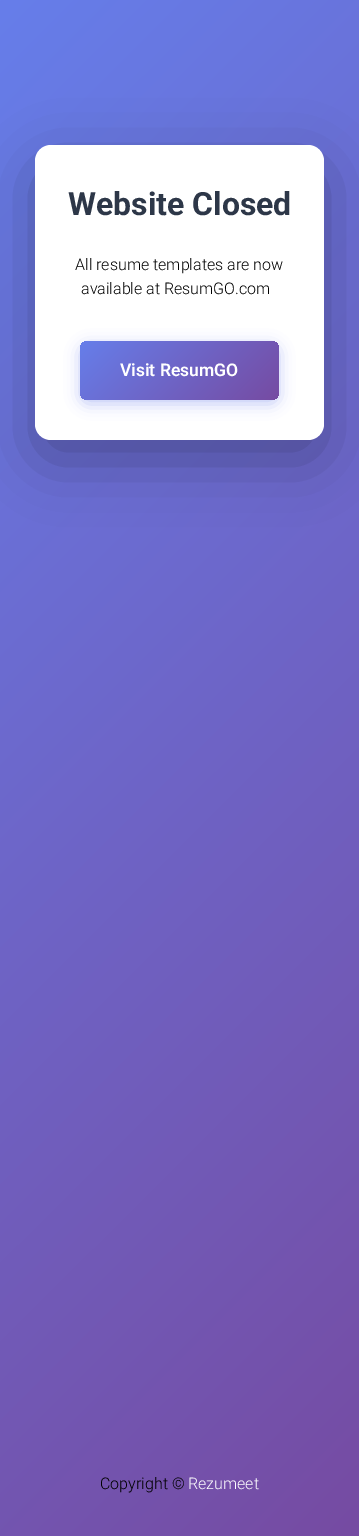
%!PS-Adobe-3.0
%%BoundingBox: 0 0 359 1536
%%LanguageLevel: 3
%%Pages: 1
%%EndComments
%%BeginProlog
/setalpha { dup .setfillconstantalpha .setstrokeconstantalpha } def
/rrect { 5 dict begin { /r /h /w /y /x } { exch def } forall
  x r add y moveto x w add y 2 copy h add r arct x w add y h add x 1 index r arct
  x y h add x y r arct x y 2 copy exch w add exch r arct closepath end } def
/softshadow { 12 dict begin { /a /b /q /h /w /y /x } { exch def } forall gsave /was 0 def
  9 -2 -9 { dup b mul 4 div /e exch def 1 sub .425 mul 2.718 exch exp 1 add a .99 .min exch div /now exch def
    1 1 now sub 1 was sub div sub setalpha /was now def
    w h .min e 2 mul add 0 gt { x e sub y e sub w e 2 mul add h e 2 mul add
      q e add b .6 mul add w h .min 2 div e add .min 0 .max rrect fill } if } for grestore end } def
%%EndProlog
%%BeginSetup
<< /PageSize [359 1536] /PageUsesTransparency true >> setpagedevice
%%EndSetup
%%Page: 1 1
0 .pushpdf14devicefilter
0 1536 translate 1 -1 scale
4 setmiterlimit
1 setgray
0 0 359 1536 rectfill
gsave newpath 0 0 moveto 359 0 lineto 359 1536 lineto 0 1536 lineto closepath clip newpath
<< /ShadingType 2 /ColorSpace /DeviceRGB /Coords [-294 294 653 1242] /Extend [true true] /Function << /FunctionType 2 /Domain [0 1] /C0 [0.4 0.494 0.918] /C1 [0.463 0.294 0.635] /N 1 >> >> shfill grestore
0 setgray
35 165 289 295 16 30 0.3 softshadow
1 setgray
35 145 289 295 16 rrect fill
0.4 0.494 0.918 setrgbcolor
80 345 199 59 8 7.5 0.4 softshadow
gsave 80 341 199 59 8 rrect clip newpath
<< /ShadingType 2 /ColorSpace /DeviceRGB /Coords [115 306 244 435] /Extend [true true] /Function << /FunctionType 2 /Domain [0 1] /C0 [0.4 0.494 0.918] /C1 [0.463 0.294 0.635] /N 1 >> >> shfill grestore
/Roboto-Bold [32 0 0 -32 0 0] selectfont
0.176 0.216 0.282 setrgbcolor
68 215 moveto (Website Closed) show
/Roboto-Light [16 0 0 -16 0 0] selectfont
0 setgray
75 270 moveto (All resume templates are now) show
81 294 moveto (available at ResumGO.com) show
/Roboto-SemiBold [17.5 0 0 -17.5 0 0] selectfont
1 setgray
120 376 moveto (Visit ResumGO) show
/Roboto-Light [16 0 0 -16 0 0] selectfont
0 setgray
100 1489 moveto (Copyright ©) show
1 setgray
188 1489 moveto (Rezumeet) show
.poppdf14devicefilter showpage
%%EOF
